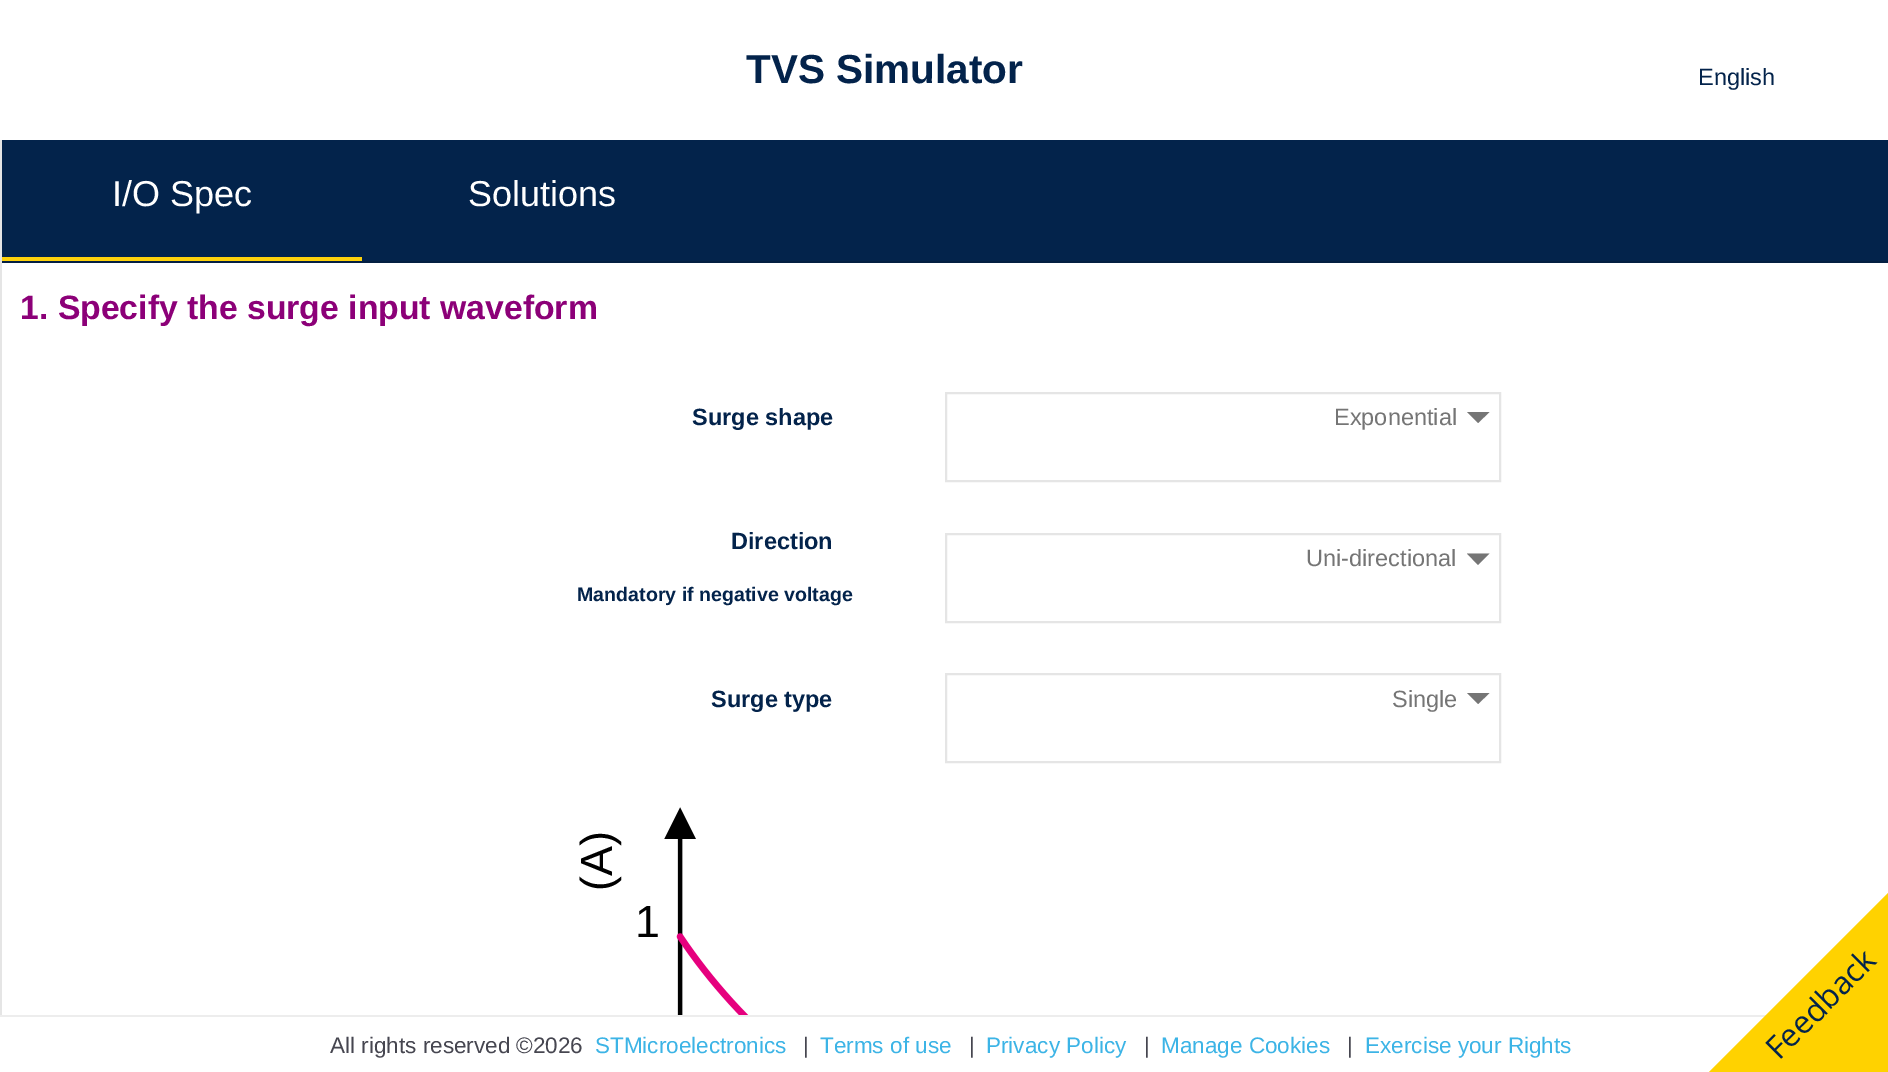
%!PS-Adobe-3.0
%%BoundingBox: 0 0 1888 1072
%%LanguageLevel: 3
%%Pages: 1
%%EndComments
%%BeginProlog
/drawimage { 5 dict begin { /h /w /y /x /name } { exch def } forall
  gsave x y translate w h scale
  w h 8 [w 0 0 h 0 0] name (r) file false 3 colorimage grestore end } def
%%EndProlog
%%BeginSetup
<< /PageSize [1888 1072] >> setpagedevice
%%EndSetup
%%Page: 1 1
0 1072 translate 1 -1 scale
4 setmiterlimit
1 setgray
0 0 1888 1072 rectfill
0.898 setgray
0 140 2 875 rectfill
0.012 0.137 0.294 setrgbcolor
2 140 1886 121 rectfill
0.012 0.122 0.259 setrgbcolor
2 261 1886 2 rectfill
0.992 0.82 0.043 setrgbcolor
2 257 360 4 rectfill
0.898 setgray
2 setlinewidth
946 393 554 88 rectstroke
0.459 setgray
newpath 1467 412 moveto 1489.5 412 lineto 1478 423 lineto closepath fill
0.898 setgray
946 534 554 88 rectstroke
0.459 setgray
newpath 1467 553.5 moveto 1489.5 553.5 lineto 1478 565 lineto closepath fill
0.898 setgray
946 674 554 88 rectstroke
0.459 setgray
newpath 1467 693 moveto 1489.5 693 lineto 1478 704 lineto closepath fill
(images/1.raw) 664 807 85 208 drawimage
0.929 setgray
0 1015 1766 2 rectfill
1 0.824 0 setrgbcolor
newpath 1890 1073 moveto 1708 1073 lineto 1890 891 lineto closepath fill
/LiberationSans-Bold [40.5 0 0 -40.5 0 0] selectfont
0.012 0.137 0.294 setrgbcolor
746 83 moveto (TVS Simulator) show
/LiberationSans-Regular [23.5 0 0 -23.5 0 0] selectfont
1698 85 moveto (English) show
/LiberationSans-Regular [36 0 0 -36 0 0] selectfont
1 setgray
112 206 moveto (I/O Spec) show
468 206 moveto (Solutions) show
/LiberationSans-Bold [33.75 0 0 -33.75 0 0] selectfont
0.549 0 0.471 setrgbcolor
20 319 moveto (1. Specify the surge input waveform) show
/LiberationSans-Bold [23.5 0 0 -23.5 0 0] selectfont
0.012 0.137 0.294 setrgbcolor
692 425 moveto (Surge shape) show
/LiberationSans-Regular [23.5 0 0 -23.5 0 0] selectfont
0.459 setgray
1334 425 moveto (Exponential) show
/LiberationSans-Bold [23.5 0 0 -23.5 0 0] selectfont
0.012 0.137 0.294 setrgbcolor
731 549 moveto (Direction) show
/LiberationSans-Bold [19.6 0 0 -19.6 0 0] selectfont
577 601 moveto (Mandatory if negative voltage) show
/LiberationSans-Regular [23.5 0 0 -23.5 0 0] selectfont
0.459 setgray
1306 566 moveto (Uni-directional) show
/LiberationSans-Bold [23.5 0 0 -23.5 0 0] selectfont
0.012 0.137 0.294 setrgbcolor
711 707 moveto (Surge type) show
/LiberationSans-Regular [23.5 0 0 -23.5 0 0] selectfont
0.459 setgray
1392 707 moveto (Single) show
/LiberationSans-Regular [45 0 0 -45 0 0] selectfont
0 setgray
gsave 612 891 translate -90 rotate 0 0 moveto (\(A\)) show grestore
635 937 moveto (1) show
/LiberationSans-Regular [22.5 0 0 -22.5 0 0] selectfont
0.275 0.275 0.314 setrgbcolor
330 1053 moveto (All rights reserved ©2026) show
0.235 0.706 0.902 setrgbcolor
595 1053 moveto (STMicroelectronics) show
0.275 0.275 0.314 setrgbcolor
803 1053 moveto (|) show
0.235 0.706 0.902 setrgbcolor
820 1053 moveto (Terms of use) show
0.275 0.275 0.314 setrgbcolor
969 1053 moveto (|) show
0.235 0.706 0.902 setrgbcolor
986 1053 moveto (Privacy Policy) show
0.275 0.275 0.314 setrgbcolor
1144 1053 moveto (|) show
0.235 0.706 0.902 setrgbcolor
1161 1053 moveto (Manage Cookies) show
0.275 0.275 0.314 setrgbcolor
1347 1053 moveto (|) show
0.235 0.706 0.902 setrgbcolor
1365 1053 moveto (Exercise your Rights) show
/OpenSans-Regular [31.5 0 0 -31.5 0 0] selectfont
0.012 0.137 0.294 setrgbcolor
gsave 1779 1061 translate -45 rotate 0 0 moveto (Feedback) show grestore
showpage
%%EOF
